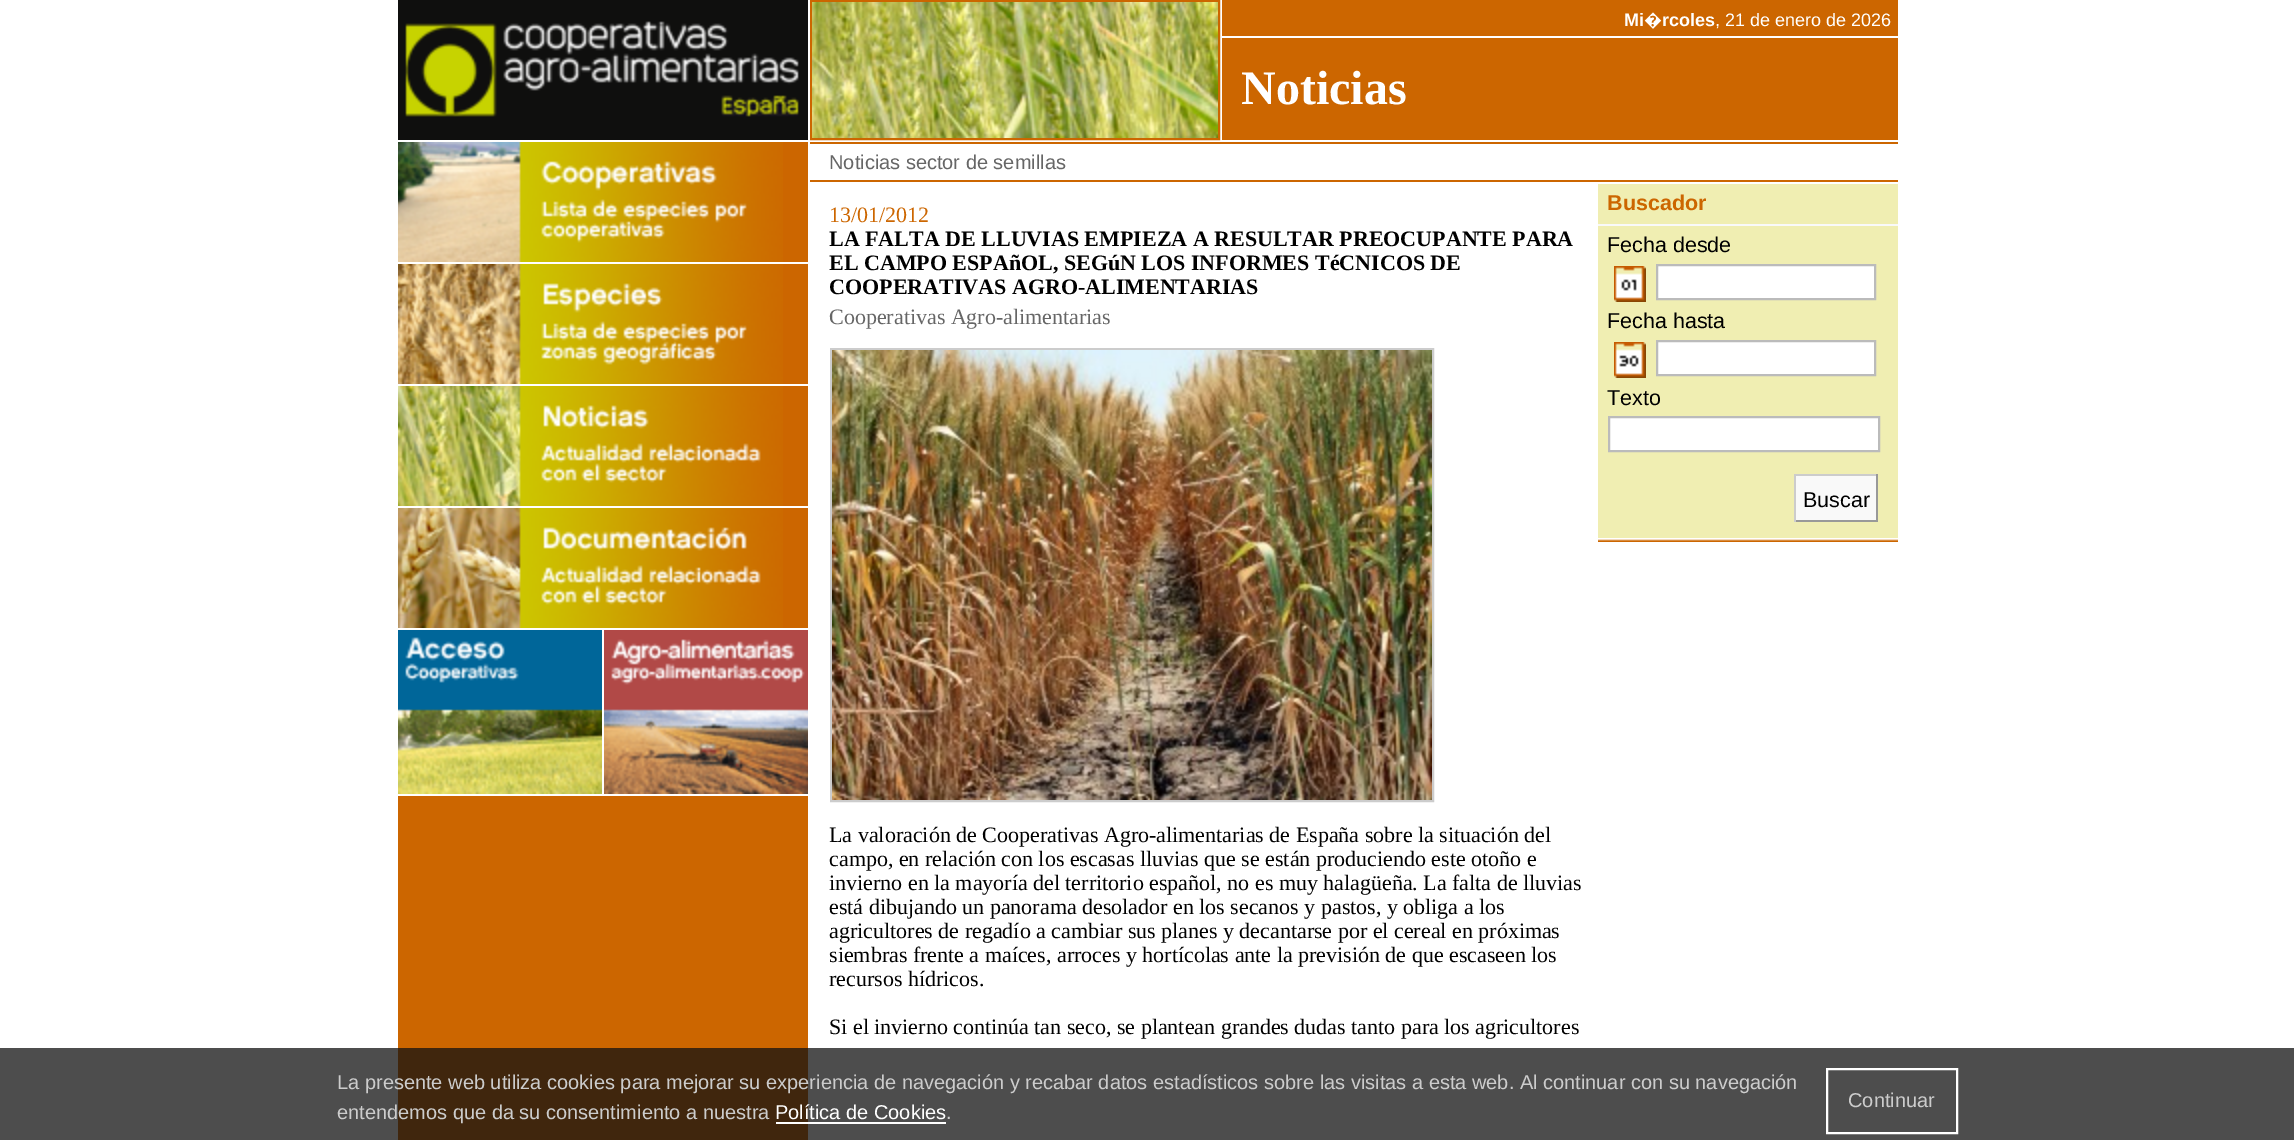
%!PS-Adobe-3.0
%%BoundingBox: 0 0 2294 1140
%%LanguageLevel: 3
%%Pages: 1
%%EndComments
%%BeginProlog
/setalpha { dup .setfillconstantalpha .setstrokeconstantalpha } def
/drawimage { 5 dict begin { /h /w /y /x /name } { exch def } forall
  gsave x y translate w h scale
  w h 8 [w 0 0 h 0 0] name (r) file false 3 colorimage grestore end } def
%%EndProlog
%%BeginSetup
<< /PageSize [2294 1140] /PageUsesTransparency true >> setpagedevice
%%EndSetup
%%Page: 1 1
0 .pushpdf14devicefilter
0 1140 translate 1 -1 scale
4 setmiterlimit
1 setgray
0 0 2294 1140 rectfill
0.8 0.4 0 setrgbcolor
398 142 410 998 rectfill
(images/1.raw) 398 0 410 140 drawimage
1 setgray
398 262 410 2 rectfill
(images/2.raw) 398 142 385 120 drawimage
398 384 410 2 rectfill
(images/3.raw) 398 264 385 120 drawimage
398 506 410 2 rectfill
(images/4.raw) 398 386 385 120 drawimage
398 628 410 2 rectfill
(images/5.raw) 398 508 385 120 drawimage
398 794 410 2 rectfill
(images/6.raw) 398 630 204 164 drawimage
602 630 2 164 rectfill
(images/7.raw) 604 630 204 164 drawimage
0.8 0.4 0 setrgbcolor
2 setlinewidth
811 1 408 138 rectstroke
(images/8.raw) 812 2 406 136 drawimage
1222 0 676 140 rectfill
1 setgray
1222 36 676 2 rectfill
0.8 0.4 0 setrgbcolor
810 142 1088 2 rectfill
810 180 1088 2 rectfill
0.8 setgray
831 349 602 452 rectstroke
(images/9.raw) 832 350 600 450 drawimage
0.941 0.933 0.698 setrgbcolor
1598 184 300 354 rectfill
(images/10.raw) 1598 538 300 4 drawimage
0.976 setgray
1598 224 300 2 rectfill
(images/11.raw) 1614 266 32 36 drawimage
1 setgray
newpath 1657 265 moveto 1875 265 lineto 1875 299 lineto 1657 299 lineto closepath gsave fill grestore
0.733 setgray
stroke
(images/12.raw) 1614 342 32 36 drawimage
1 setgray
newpath 1657 341 moveto 1875 341 lineto 1875 375 lineto 1657 375 lineto closepath gsave fill grestore
0.733 setgray
stroke
1 setgray
newpath 1609 417 moveto 1879 417 lineto 1879 451 lineto 1609 451 lineto closepath gsave fill grestore
0.733 setgray
stroke
0.976 setgray
1796 476 80 44 rectfill
0.8 setgray
1794 474 84 2 rectfill
0.6 setgray
1876 474 2 48 rectfill
1794 520 84 2 rectfill
0.8 setgray
1794 474 2 48 rectfill
0.75 setalpha
0.067 setgray
0 1048 2294 92 rectfill
1 setalpha
1 setgray
776 1122 170 2 rectfill
1827 1069 130 64 rectstroke
/LiberationSans-Bold [18 0 0 -18 0 0] selectfont
1624 26 moveto (Mi) show
/NotoSans-Bold [18 0 0 -18 0 0] selectfont
1644 26 moveto (�) show
/LiberationSans-Bold [18 0 0 -18 0 0] selectfont
1662 26 moveto (rcoles) show
/LiberationSans-Regular [18 0 0 -18 0 0] selectfont
1715 26 moveto (, 21 de enero de 2026) show
/LiberationSerif-Bold [48 0 0 -48 0 0] selectfont
1241 104 moveto (Noticias) show
/LiberationSans-Regular [20 0 0 -20 0 0] selectfont
0.4 setgray
829 169 moveto (Noticias sector de semillas) show
/LiberationSerif-Regular [22 0 0 -22 0 0] selectfont
0.8 0.4 0 setrgbcolor
829 222 moveto (13/01/2012) show
/LiberationSerif-Bold [22 0 0 -22 0 0] selectfont
0 setgray
829 246 moveto (LA FALTA DE LLUVIAS EMPIEZA A RESULTAR PREOCUPANTE PARA) show
829 270 moveto (EL CAMPO ESPAñOL, SEGúN LOS INFORMES TéCNICOS DE) show
829 294 moveto (COOPERATIVAS AGRO-ALIMENTARIAS) show
/LiberationSerif-Regular [22 0 0 -22 0 0] selectfont
0.4 setgray
829 324 moveto (Cooperativas Agro-alimentarias) show
0 setgray
829 842 moveto (La valoración de Cooperativas Agro-alimentarias de España sobre la situación del) show
829 866 moveto (campo, en relación con los escasas lluvias que se están produciendo este otoño e) show
829 890 moveto (invierno en la mayoría del territorio español, no es muy halagüeña. La falta de lluvias) show
829 914 moveto (está dibujando un panorama desolador en los secanos y pastos, y obliga a los) show
829 938 moveto (agricultores de regadío a cambiar sus planes y decantarse por el cereal en próximas) show
829 962 moveto (siembras frente a maíces, arroces y hortícolas ante la previsión de que escaseen los) show
829 986 moveto (recursos hídricos.) show
829 1034 moveto (Si el invierno continúa tan seco, se plantean grandes dudas tanto para los agricultores) show
/LiberationSans-Bold [21.5 0 0 -21.5 0 0] selectfont
0.8 0.4 0 setrgbcolor
1607 210 moveto (Buscador) show
/LiberationSans-Regular [21.5 0 0 -21.5 0 0] selectfont
0 setgray
1607 252 moveto (Fecha desde) show
1607 328 moveto (Fecha hasta) show
1607 405 moveto (Texto) show
1803 507 moveto (Buscar) show
/LiberationSans-Regular [20 0 0 -20 0 0] selectfont
0.8 setgray
337 1089 moveto (La presente web utiliza cookies para mejorar su experiencia de navegación y recabar datos estadísticos sobre las visitas a esta web. Al continuar con su navegación) show
337 1119 moveto (entendemos que da su consentimiento a nuestra) show
1 setgray
775 1119 moveto (Política de Cookies) show
0.8 setgray
946 1119 moveto (.) show
1848 1107 moveto (Continuar) show
.poppdf14devicefilter showpage
%%EOF
